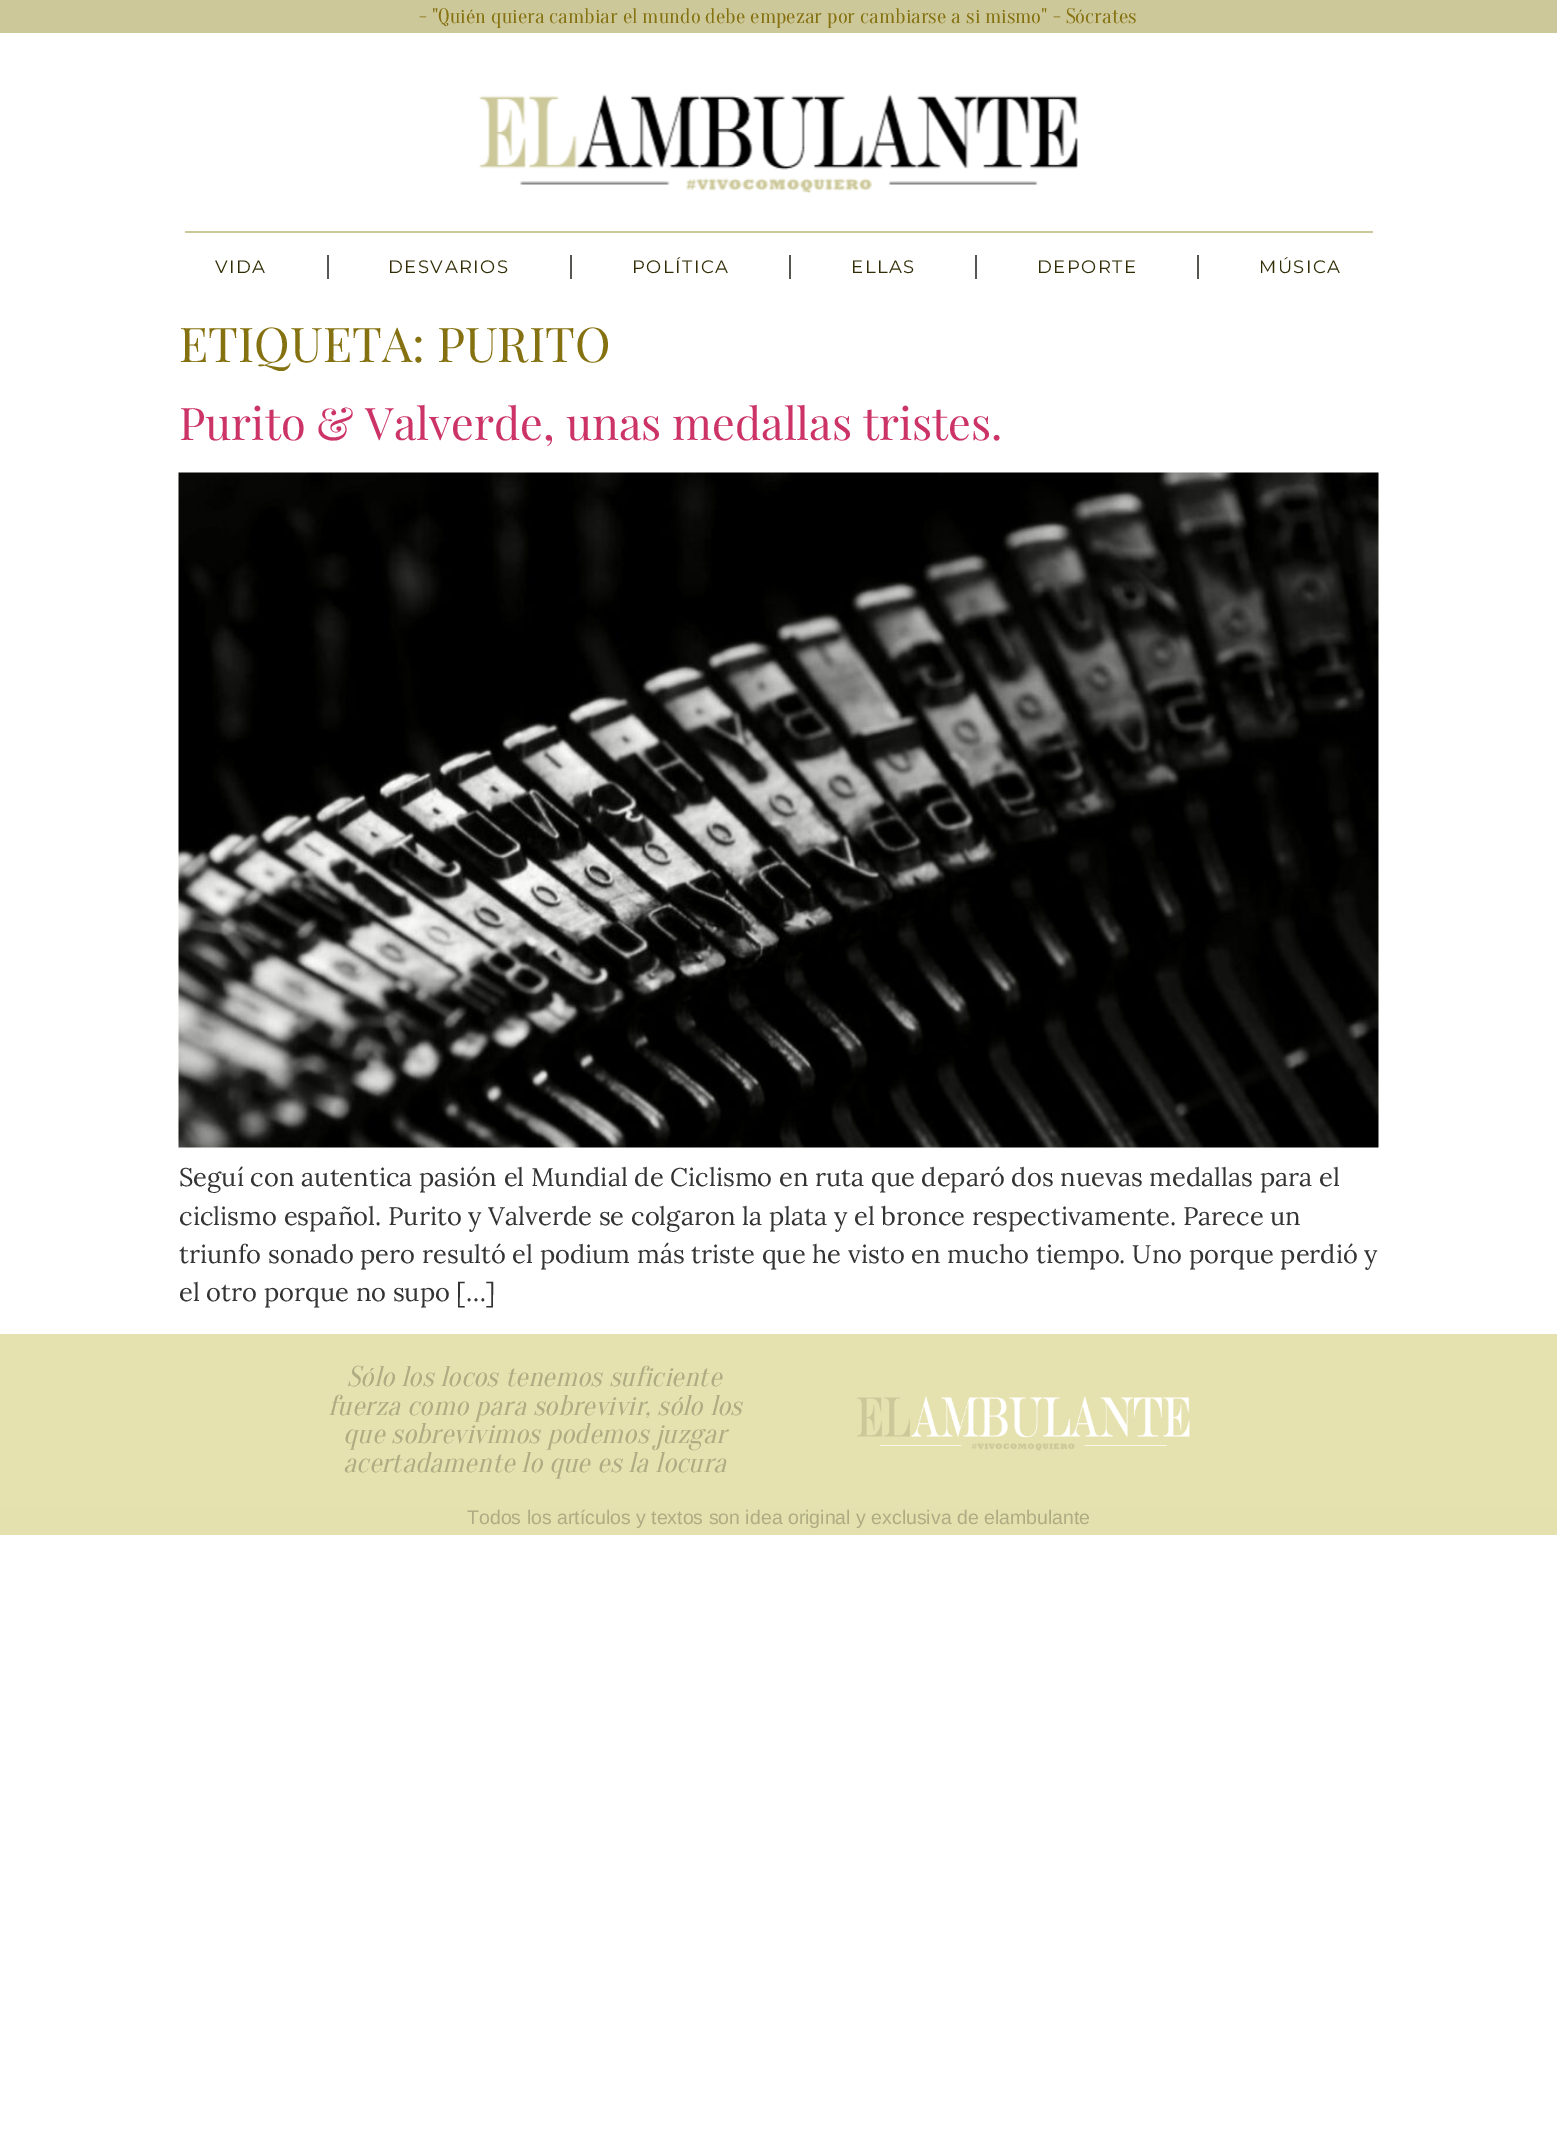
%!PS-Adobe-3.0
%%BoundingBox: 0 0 1557 2131
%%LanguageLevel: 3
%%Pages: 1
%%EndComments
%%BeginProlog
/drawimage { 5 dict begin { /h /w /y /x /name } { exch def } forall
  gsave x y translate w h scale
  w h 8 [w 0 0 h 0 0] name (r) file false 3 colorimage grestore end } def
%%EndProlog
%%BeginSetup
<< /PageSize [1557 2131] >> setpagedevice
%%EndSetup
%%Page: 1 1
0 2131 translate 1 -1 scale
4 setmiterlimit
1 setgray
0 0 1557 2131 rectfill
0.8 0.784 0.604 setrgbcolor
0 0 1557 33 rectfill
(images/1.raw) 479 94 599 100 drawimage
185 231 1188 2 rectfill
0.341 0.337 0.322 setrgbcolor
327 255 2 24 rectfill
570 255 2 24 rectfill
789 255 2 24 rectfill
975 255 2 24 rectfill
1197 255 2 24 rectfill
(images/2.raw) 178 472 1201 676 drawimage
0.902 0.886 0.686 setrgbcolor
0 1334 1557 174 rectfill
(images/3.raw) 857 1396 333 55 drawimage
0.898 0.882 0.686 setrgbcolor
0 1508 1557 27 rectfill
/Oranienbaum-Regular [21 0 0 -21 0 0] selectfont
0.522 0.443 0.059 setrgbcolor
419 23 moveto (- "Quién quiera cambiar el mundo debe empezar por cambiarse a si mismo" - Sócrates) show
/Montserrat-Regular [18 0 0 -18 0 0] selectfont
0.196 0.176 0.024 setrgbcolor
215 273 moveto 1.5 0 (VIDA) ashow
388 273 moveto 1.5 0 (DESVARIOS) ashow
632 273 moveto 1.5 0 (POLÍTICA) ashow
851 273 moveto 1.5 0 (ELLAS) ashow
1037 273 moveto 1.5 0 (DEPORTE) ashow
1259 273 moveto 1.5 0 (MÚSICA) ashow
/PlayfairDisplay-Regular [48 0 0 -48 0 0] selectfont
0.522 0.443 0.059 setrgbcolor
179 362 moveto (ETIQUETA: PURITO) show
/PlayfairDisplay-Regular [45 0 0 -45 0 0] selectfont
0.8 0.2 0.4 setrgbcolor
179 440 moveto (Purito & Valverde, unas medallas tristes.) show
/Lora-Regular [25.5 0 0 -25.5 0 0] selectfont
0.2 setgray
179 1186 moveto (Seguí con autentica pasión el Mundial de Ciclismo en ruta que deparó dos nuevas medallas para el) show
179 1225 moveto (ciclismo español. Purito y Valverde se colgaron la plata y el bronce respectivamente. Parece un) show
179 1263 moveto (triunfo sonado pero resultó el podium más triste que he visto en mucho tiempo. Uno porque perdió y) show
179 1301 moveto (el otro porque no supo […]) show
/Oranienbaum-Italic [28.5 0 0 -28.5 0 0] selectfont
0.686 0.675 0.518 setrgbcolor
347 1386 moveto (Sólo los locos tenemos suficiente) show
328 1415 moveto (fuerza como para sobrevivir, sólo los) show
343 1443 moveto (que sobrevivimos podemos juzgar) show
343 1472 moveto (acertadamente lo que es la locura) show
/LiberationSans-Regular [19.5 0 0 -19.5 0 0] selectfont
467 1524 moveto (Todos los artículos y textos son idea original y exclusiva de elambulante) show
showpage
%%EOF
